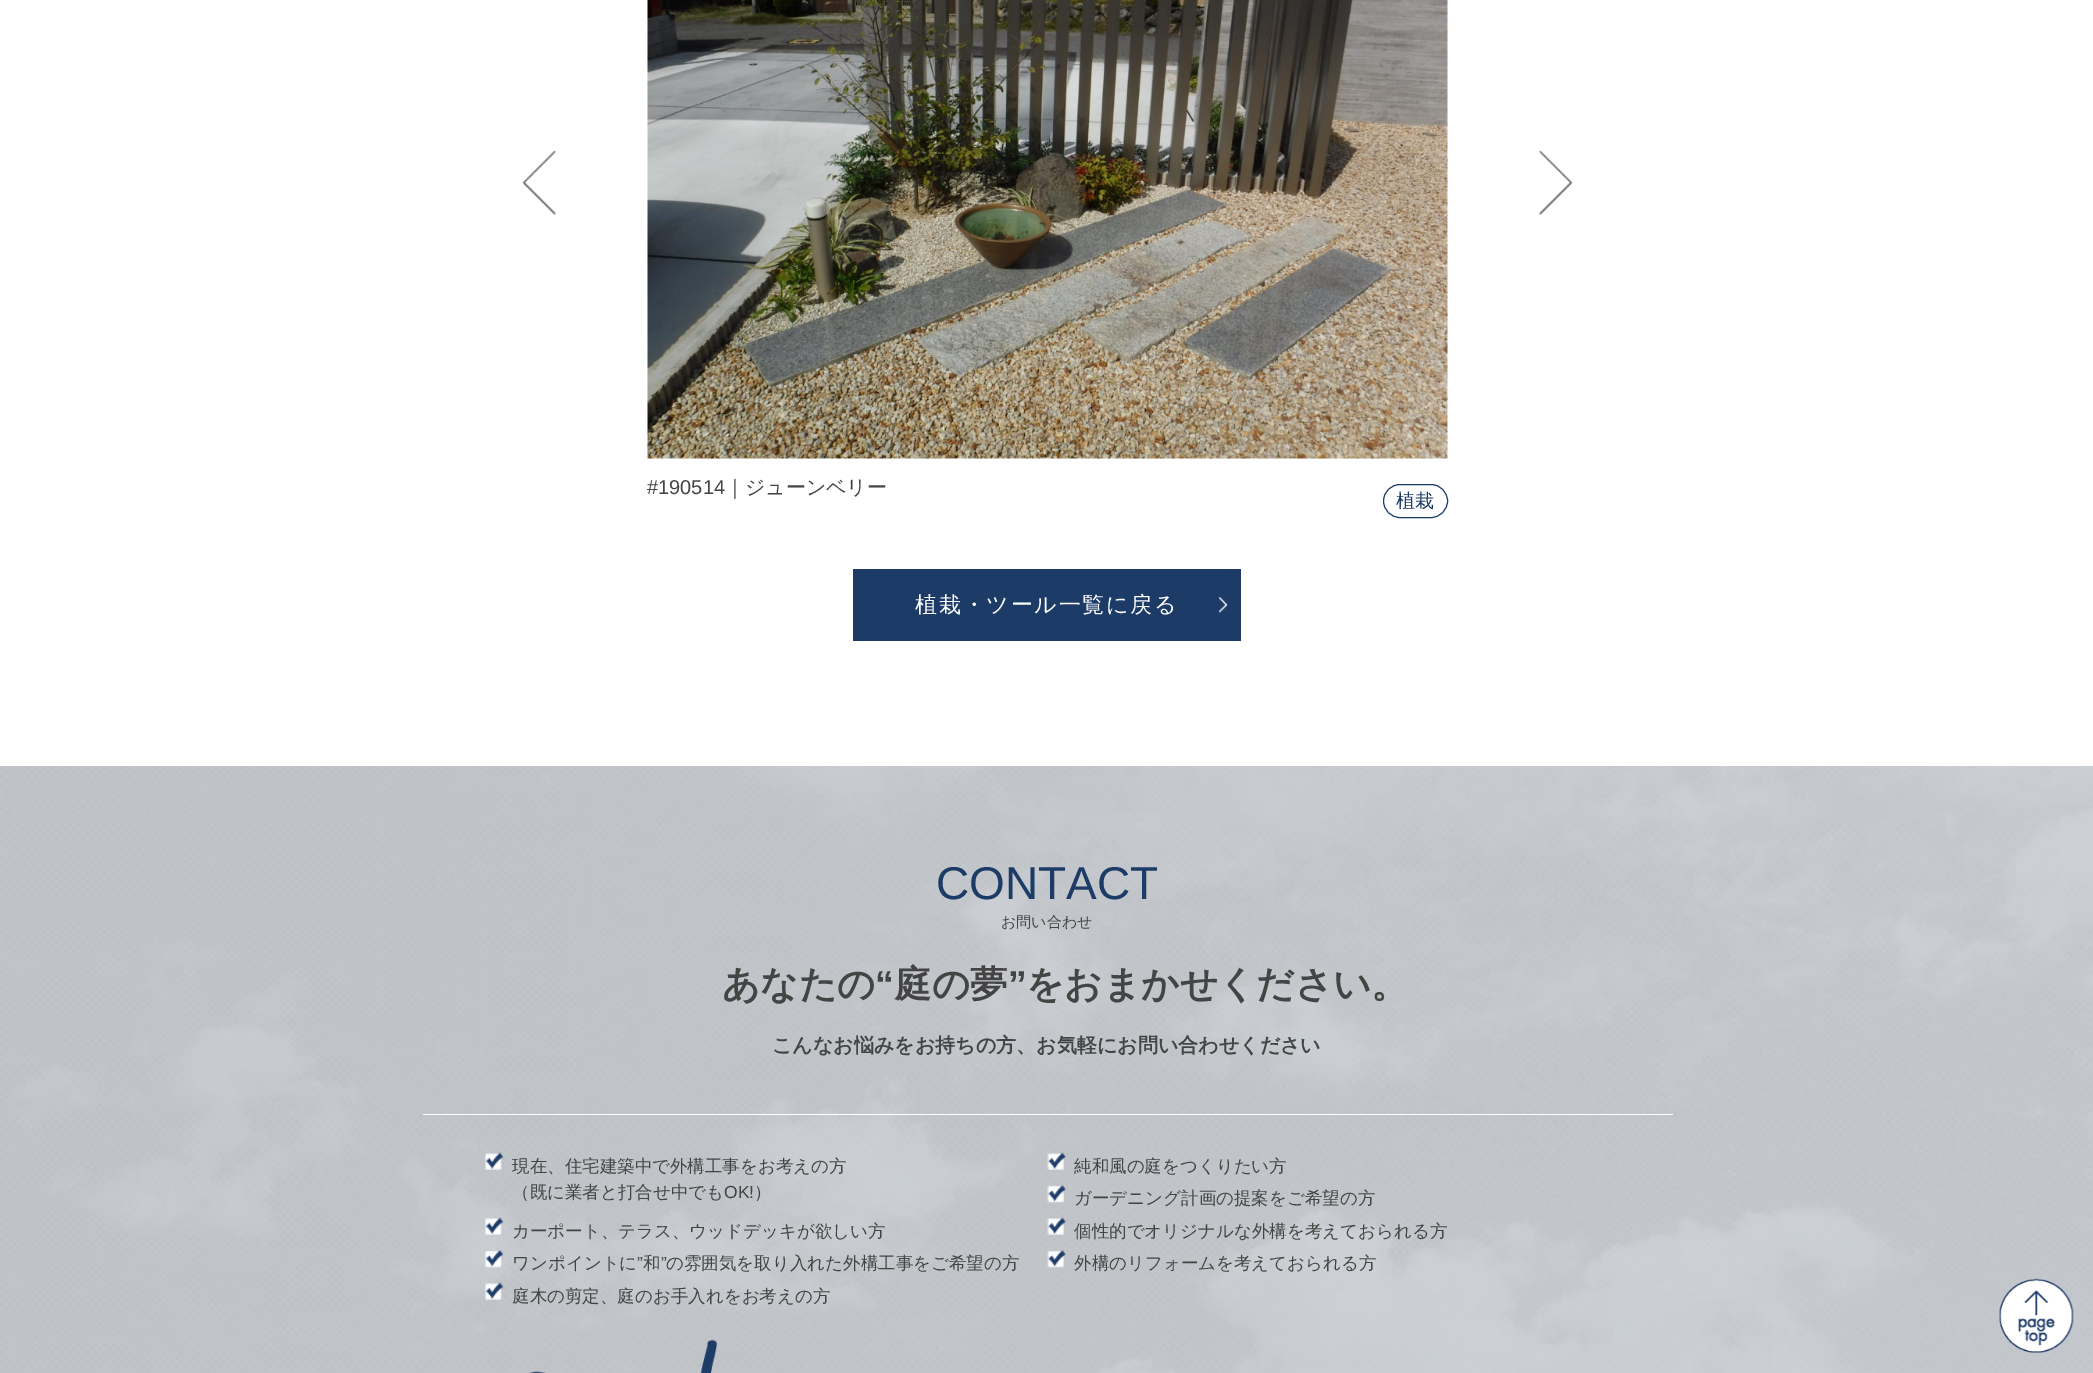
%!PS-Adobe-3.0
%%BoundingBox: 0 0 2093 1373
%%LanguageLevel: 3
%%Pages: 1
%%EndComments
%%BeginProlog
/rrect { 5 dict begin { /r /h /w /y /x } { exch def } forall
  x r add y moveto x w add y 2 copy h add r arct x w add y h add x 1 index r arct
  x y h add x y r arct x y 2 copy exch w add exch r arct closepath end } def
/drawimage { 5 dict begin { /h /w /y /x /name } { exch def } forall
  gsave x y translate w h scale
  w h 8 [w 0 0 h 0 0] name (r) file false 3 colorimage grestore end } def
%%EndProlog
%%BeginSetup
<< /PageSize [2093 1373] >> setpagedevice
%%EndSetup
%%Page: 1 1
0 1373 translate 1 -1 scale
4 setmiterlimit
1 setgray
0 0 2093 1373 rectfill
(images/1.raw) 647 0 801 459 drawimage
(images/2.raw) 522 150 35 65 drawimage
(images/3.raw) 1538 150 35 65 drawimage
0.114 0.231 0.404 setrgbcolor
1383.5 484.5 64 33 16.5 rrect stroke
853 569 388 72 rectfill
(images/4.raw) 1218 597 10 16 drawimage
(images/5.raw) 0 766 2093 607 drawimage
1 setgray
423 1114 1250 1 rectfill
(images/6.raw) 485 1152 19 18 drawimage
(images/7.raw) 1047 1152 20 18 drawimage
(images/8.raw) 1047 1184 20 19 drawimage
(images/9.raw) 485 1217 19 18 drawimage
(images/10.raw) 1047 1217 20 18 drawimage
(images/11.raw) 485 1249 19 19 drawimage
(images/12.raw) 1047 1249 20 19 drawimage
(images/13.raw) 485 1282 19 18 drawimage
(images/14.raw) 529 1339 189 34 drawimage
(images/15.raw) 1999 1278 75 75 drawimage
/LiberationSans-Regular [20 0 0 -20 0 0] selectfont
0.267 setgray
647 494 moveto (#190514) show
/WenQuanYiZenHei-Medium [20 0 0 -20 0 0] selectfont
725 494 moveto (｜ジューンベリー) show
/WenQuanYiZenHei-Medium [19 0 0 -19 0 0] selectfont
0.114 0.231 0.404 setrgbcolor
1396 507 moveto (植栽) show
/WenQuanYiZenHei-Medium [22 0 0 -22 0 0] selectfont
1 setgray
915 612 moveto 1.75 0 (植栽・ツール一覧に戻る) ashow
/LiberationSans-Regular [46 0 0 -46 0 0] selectfont
0.114 0.231 0.404 setrgbcolor
936 899 moveto (CONTACT) show
/WenQuanYiZenHei-Medium [15 0 0 -15 0 0] selectfont
0.267 setgray
1001 927 moveto (お問い合わせ) show
/WenQuanYiZenHei-Bold [37.5 0 0 -37.5 0 0] selectfont
722 997 moveto (あなたの) show
/LiberationSans-Bold [37.5 0 0 -37.5 0 0] selectfont
875 997 moveto (“) show
/WenQuanYiZenHei-Bold [37.5 0 0 -37.5 0 0] selectfont
894 997 moveto (庭の夢) show
/LiberationSans-Bold [37.5 0 0 -37.5 0 0] selectfont
1008 997 moveto (”) show
/WenQuanYiZenHei-Bold [37.5 0 0 -37.5 0 0] selectfont
1026 997 moveto (をおまかせください。) show
/WenQuanYiZenHei-Bold [20 0 0 -20 0 0] selectfont
772 1052 moveto (こんなお悩みをお持ちの方、お気軽にお問い合わせください) show
/WenQuanYiZenHei-Medium [17.5 0 0 -17.5 0 0] selectfont
512 1172 moveto (現在、住宅建築中で外構工事をお考えの方) show
512 1198 moveto (（既に業者と打合せ中でも) show
/LiberationSans-Regular [17.5 0 0 -17.5 0 0] selectfont
724 1198 moveto (OK!) show
/WenQuanYiZenHei-Medium [17.5 0 0 -17.5 0 0] selectfont
754 1198 moveto (）) show
1074 1172 moveto (純和風の庭をつくりたい方) show
1074 1204 moveto (ガーデニング計画の提案をご希望の方) show
512 1237 moveto (カーポート、テラス、ウッドデッキが欲しい方) show
1074 1237 moveto (個性的でオリジナルな外構を考えておられる方) show
512 1269 moveto (ワンポイントに) show
/LiberationSans-Regular [17.5 0 0 -17.5 0 0] selectfont
637 1269 moveto (”) show
/WenQuanYiZenHei-Medium [17.5 0 0 -17.5 0 0] selectfont
643 1269 moveto (和) show
/LiberationSans-Regular [17.5 0 0 -17.5 0 0] selectfont
661 1269 moveto (”) show
/WenQuanYiZenHei-Medium [17.5 0 0 -17.5 0 0] selectfont
666 1269 moveto (の雰囲気を取り入れた外構工事をご希望の方) show
1074 1269 moveto (外構のリフォームを考えておられる方) show
512 1302 moveto (庭木の剪定、庭のお手入れをお考えの方) show
showpage
%%EOF
